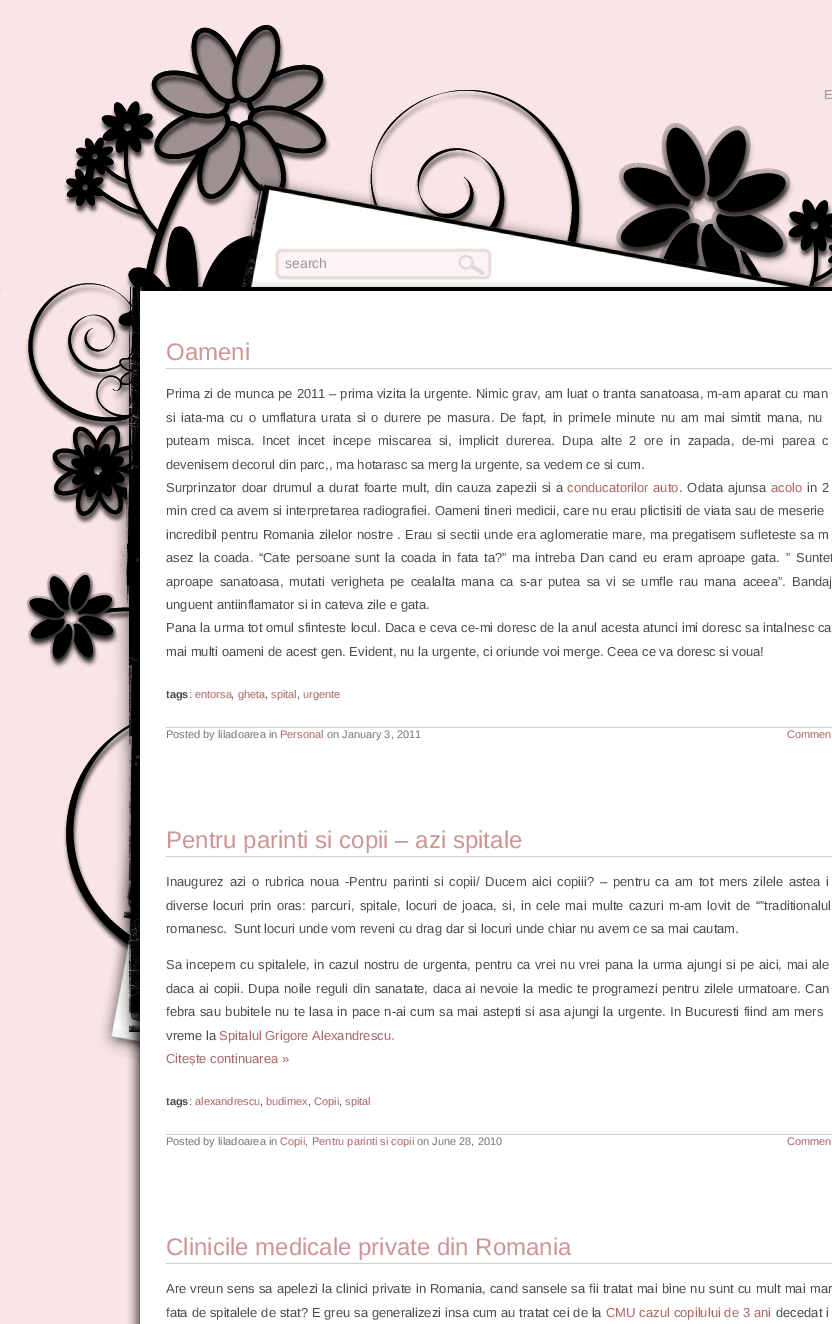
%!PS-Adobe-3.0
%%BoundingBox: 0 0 832 1324
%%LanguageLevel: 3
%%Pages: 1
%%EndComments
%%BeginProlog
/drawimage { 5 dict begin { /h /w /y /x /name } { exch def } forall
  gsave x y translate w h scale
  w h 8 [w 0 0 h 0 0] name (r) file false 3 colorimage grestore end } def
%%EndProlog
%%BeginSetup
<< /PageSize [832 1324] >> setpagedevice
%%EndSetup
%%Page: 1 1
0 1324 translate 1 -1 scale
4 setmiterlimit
0.976 0.898 0.898 setrgbcolor
0 0 832 1324 rectfill
(images/1.raw) 0 25 832 275 drawimage
(images/2.raw) 25 300 115 765 drawimage
(images/3.raw) 127 300 705 1024 drawimage
0.8 setgray
166 368 666 1 rectfill
166 727 666 1 rectfill
166 856 666 1 rectfill
166 1134 666 1 rectfill
166 1263 666 1 rectfill
/LiberationSans-Regular [13 0 0 -13 0 0] selectfont
0.6 setgray
824 99 moveto (E) show
/LiberationSans-Regular [14 0 0 -14 0 0] selectfont
285 268 moveto (search) show
/LiberationSans-Regular [24 0 0 -24 0 0] selectfont
0.8 0.588 0.588 setrgbcolor
166 360 moveto (Oameni) show
/LiberationSans-Regular [13 0 0 -13 0 0] selectfont
0.302 setgray
166 398 moveto 0.25 0 32 (Prima zi de munca pe 2011 – prima vizita la urgente. Nimic grav, am luat o tranta sanatoasa, m-am aparat cu man) widthshow
166 422 moveto 1.9 0 32 (si iata-ma cu o umflatura urata si o durere pe masura. De fapt, in primele minute nu am mai simtit mana, nu) widthshow
166 445 moveto 3.9 0 32 (puteam misca. Incet incet incepe miscarea si, implicit durerea. Dupa alte 2 ore in zapada, de-mi parea c) widthshow
166 469 moveto (devenisem decorul din parc,, ma hotarasc sa merg la urgente, sa vedem ce si cum.) show
166 492 moveto 1.25 0 32 (Surprinzator doar drumul a durat foarte mult, din cauza zapezii si a) widthshow
0.675 0.396 0.396 setrgbcolor
567 492 moveto 1 0 32 (conducatorilor auto) widthshow
0.302 setgray
679 492 moveto 1.25 0 32 (. Odata ajunsa) widthshow
0.675 0.396 0.396 setrgbcolor
771 492 moveto (acolo) show
0.302 setgray
807 492 moveto 1.25 0 32 (in 2) widthshow
166 515 moveto 0.1 0 32 (min cred ca avem si interpretarea radiografiei. Oameni tineri medicii, care nu erau plictisiti de viata sau de meserie) widthshow
166 539 moveto 0.6 0 32 (incredibil pentru Romania zilelor nostre . Erau si sectii unde era aglomeratie mare, ma pregatisem sufleteste sa m) widthshow
166 562 moveto 1.75 0 32 (asez la coada. “Cate persoane sunt la coada in fata ta?” ma intreba Dan cand eu eram aproape gata.) widthshow
786 562 moveto 2 0 32 (” Suntet) widthshow
166 586 moveto 2.4 0 32 (aproape sanatoasa, mutati verigheta pe cealalta mana ca s-ar putea sa vi se umfle rau mana aceea”. Bandaj) widthshow
166 609 moveto (unguent antiinflamator si in cateva zile e gata.) show
166 632 moveto 0.3 0 32 (Pana la urma tot omul sfinteste locul. Daca e ceva ce-mi doresc de la anul acesta atunci imi doresc sa intalnesc ca) widthshow
166 656 moveto (mai multi oameni de acest gen. Evident, nu la urgente, ci oriunde voi merge. Ceea ce va doresc si voua!) show
/LiberationSans-Bold [11 0 0 -11 0 0] selectfont
166 698 moveto (tags) show
/LiberationSans-Regular [11 0 0 -11 0 0] selectfont
189 698 moveto (:) show
0.675 0.396 0.396 setrgbcolor
195 698 moveto (entorsa) show
0.302 setgray
231 698 moveto (,) show
0.675 0.396 0.396 setrgbcolor
238 698 moveto (gheta) show
0.302 setgray
265 698 moveto (,) show
0.675 0.396 0.396 setrgbcolor
271 698 moveto (spital) show
0.302 setgray
297 698 moveto (,) show
0.675 0.396 0.396 setrgbcolor
303 698 moveto (urgente) show
0.463 setgray
166 738 moveto (Posted by liladoarea in) show
0.675 0.396 0.396 setrgbcolor
280 738 moveto (Personal) show
0.463 setgray
327 738 moveto (on January 3, 2011) show
0.675 0.396 0.396 setrgbcolor
787 738 moveto (Commen) show
/LiberationSans-Regular [24 0 0 -24 0 0] selectfont
0.8 0.588 0.588 setrgbcolor
166 848 moveto (Pentru parinti si copii – azi spitale) show
/LiberationSans-Regular [13 0 0 -13 0 0] selectfont
0.302 setgray
166 886 moveto 2.1 0 32 (Inaugurez azi o rubrica noua -Pentru parinti si copii/ Ducem aici copiii? – pentru ca am tot mers zilele astea i) widthshow
166 910 moveto 1.75 0 32 (diverse locuri prin oras: parcuri, spitale, locuri de joaca, si, in cele mai multe cazuri m-am lovit de “”traditionalul) widthshow
166 933 moveto (romanesc.  Sunt locuri unde vom reveni cu drag dar si locuri unde chiar nu avem ce sa mai cautam.) show
166 969 moveto 0.9 0 32 (Sa incepem cu spitalele, in cazul nostru de urgenta, pentru ca vrei nu vrei pana la urma ajungi si pe aici, mai ale) widthshow
166 993 moveto 1 0 32 (daca ai copii. Dupa noile reguli din sanatate, daca ai nevoie la medic te programezi pentru zilele urmatoare. Can) widthshow
166 1016 moveto 0.75 0 32 (febra sau bubitele nu te lasa in pace n-ai cum sa mai astepti si asa ajungi la urgente. In Bucuresti fiind am mers) widthshow
166 1040 moveto (vreme la) show
0.675 0.396 0.396 setrgbcolor
219 1040 moveto (Spitalul Grigore Alexandrescu.) show
166 1063 moveto (Citește continuarea ») show
/LiberationSans-Bold [11 0 0 -11 0 0] selectfont
0.302 setgray
166 1105 moveto (tags) show
/LiberationSans-Regular [11 0 0 -11 0 0] selectfont
189 1105 moveto (:) show
0.675 0.396 0.396 setrgbcolor
195 1105 moveto (alexandrescu) show
0.302 setgray
260 1105 moveto (,) show
0.675 0.396 0.396 setrgbcolor
266 1105 moveto (budimex) show
0.302 setgray
308 1105 moveto (,) show
0.675 0.396 0.396 setrgbcolor
314 1105 moveto (Copii) show
0.302 setgray
339 1105 moveto (,) show
0.675 0.396 0.396 setrgbcolor
345 1105 moveto (spital) show
0.463 setgray
166 1145 moveto (Posted by liladoarea in) show
0.675 0.396 0.396 setrgbcolor
280 1145 moveto (Copii) show
0.463 setgray
305 1145 moveto (,) show
0.675 0.396 0.396 setrgbcolor
312 1145 moveto (Pentru parinti si copii) show
0.463 setgray
417 1145 moveto (on June 28, 2010) show
0.675 0.396 0.396 setrgbcolor
787 1145 moveto (Commen) show
/LiberationSans-Regular [24 0 0 -24 0 0] selectfont
0.8 0.588 0.588 setrgbcolor
166 1255 moveto (Clinicile medicale private din Romania) show
/LiberationSans-Regular [13 0 0 -13 0 0] selectfont
0.302 setgray
166 1293 moveto 0.6 0 32 (Are vreun sens sa apelezi la clinici private in Romania, cand sansele sa fii tratat mai bine nu sunt cu mult mai mar) widthshow
166 1317 moveto 0.25 0 32 (fata de spitalele de stat? E greu sa generalizezi insa cum au tratat cei de la) widthshow
0.675 0.396 0.396 setrgbcolor
606 1317 moveto 0.25 0 32 (CMU cazul copilului de 3 ani) widthshow
0.302 setgray
776 1317 moveto 0.25 0 32 (decedat i) widthshow
showpage
%%EOF
